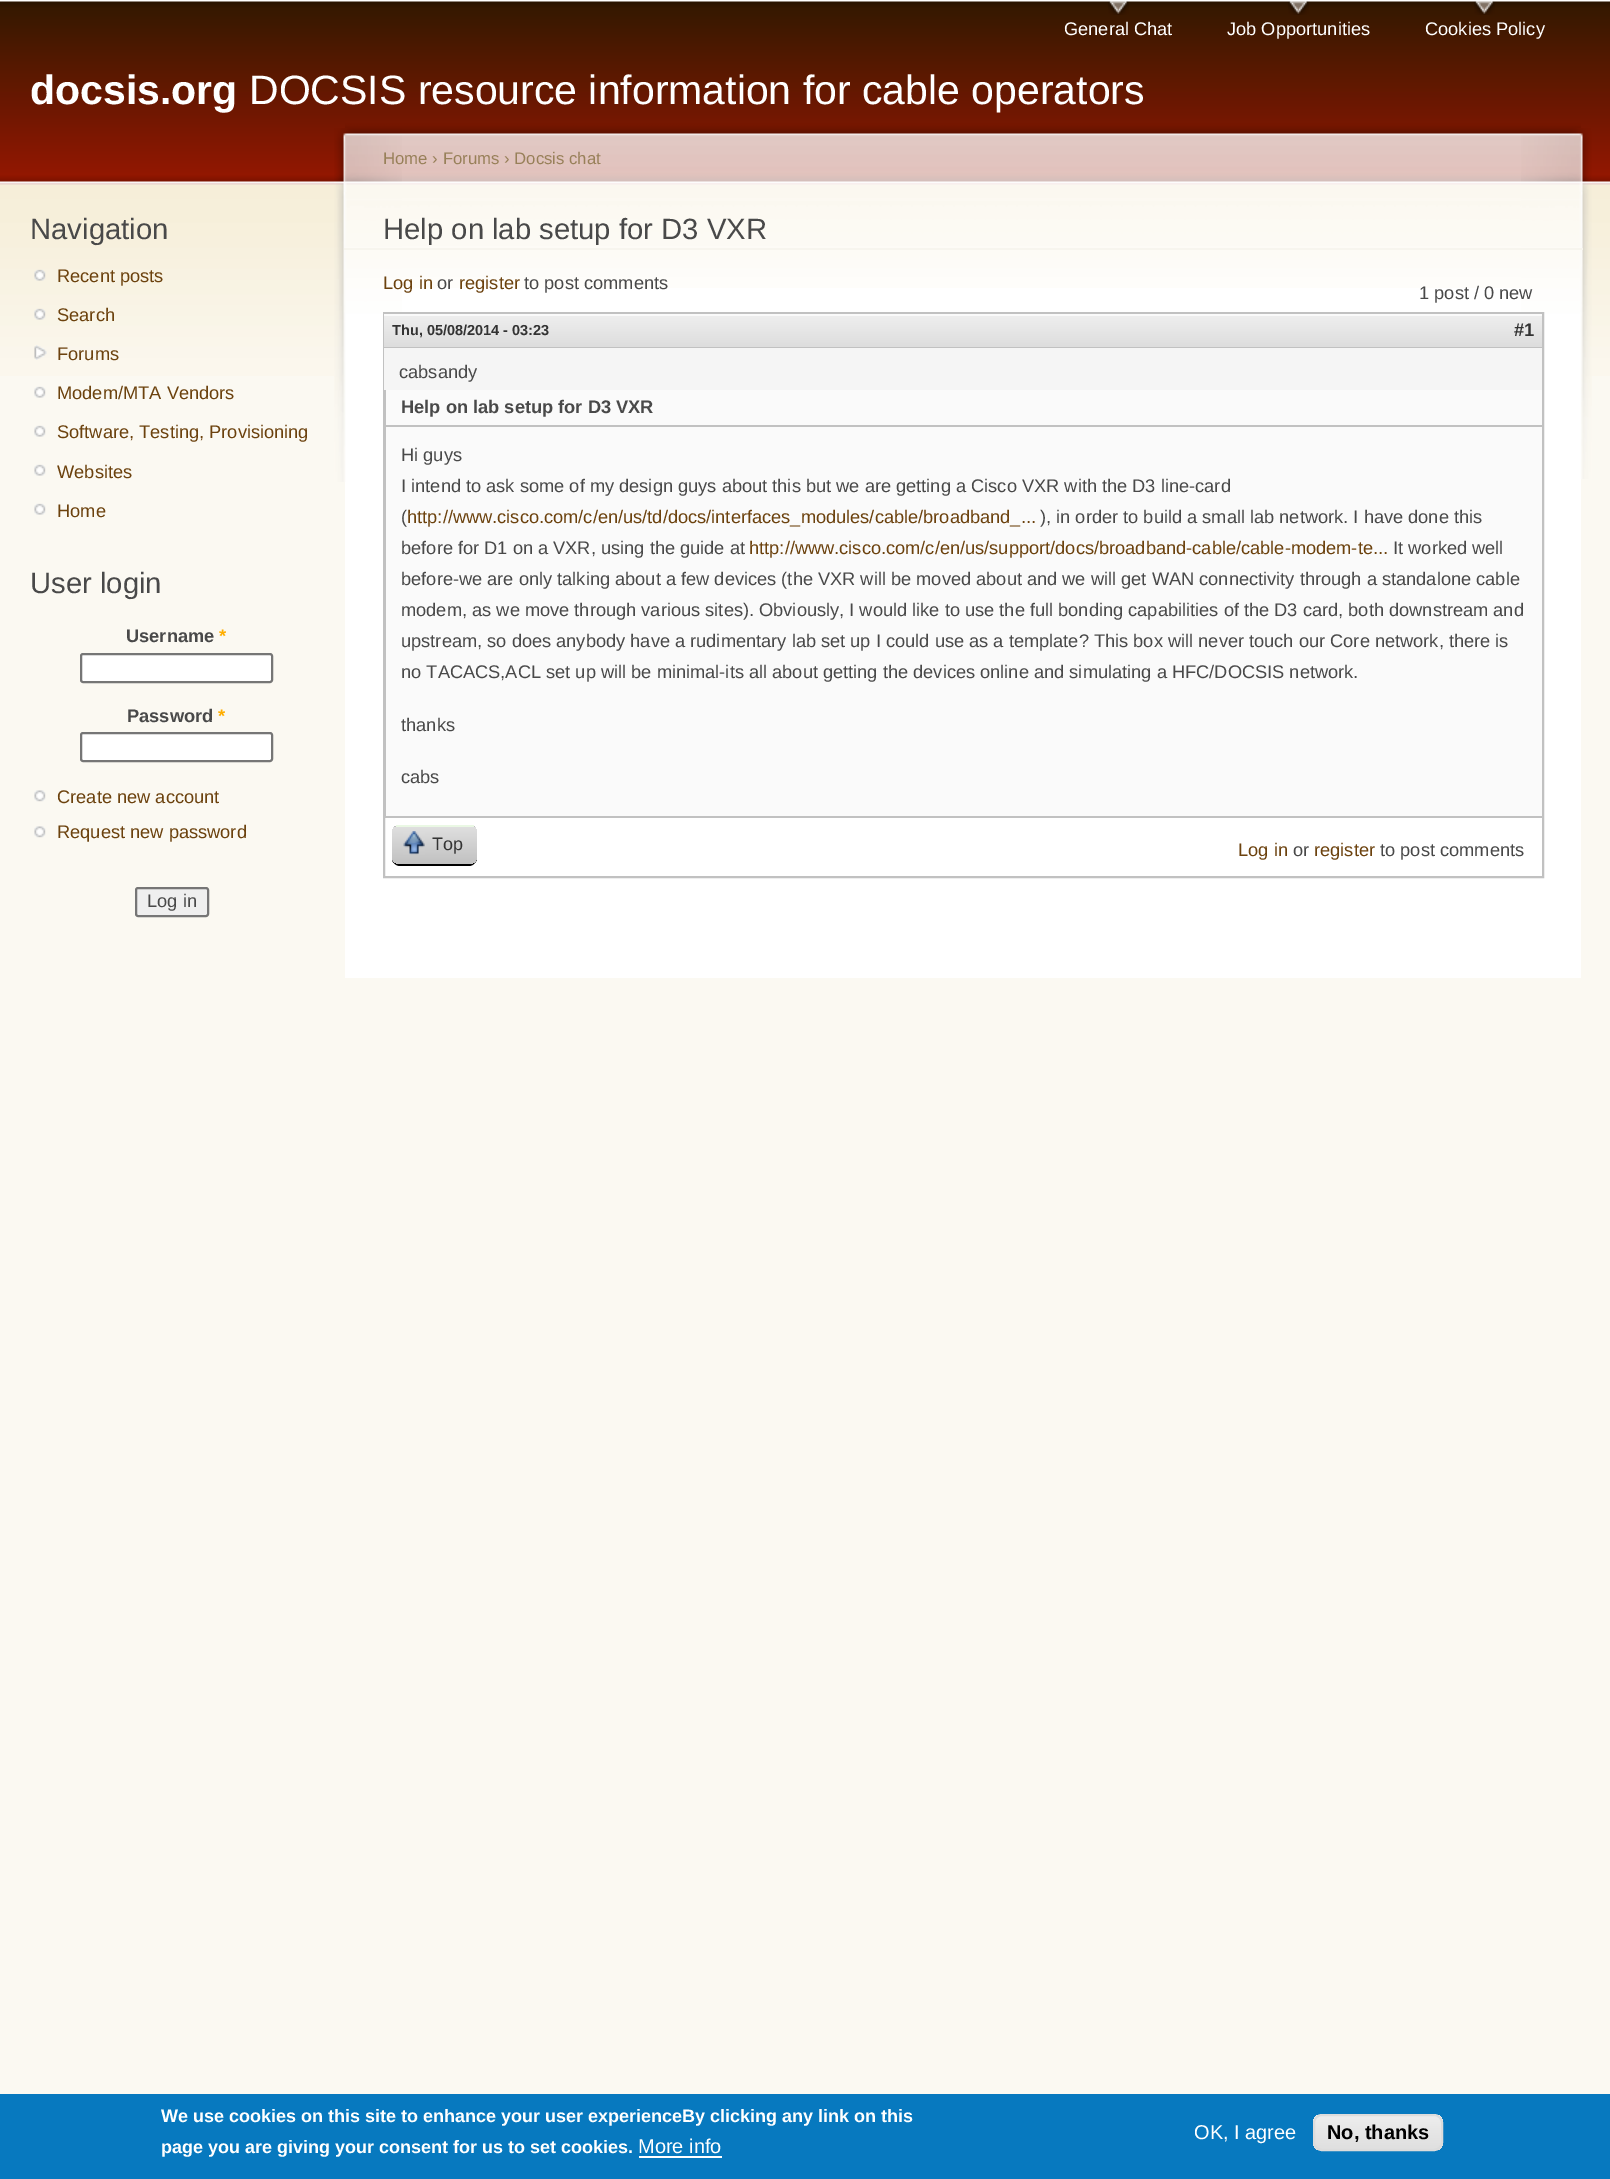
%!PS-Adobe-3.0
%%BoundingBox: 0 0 1610 2179
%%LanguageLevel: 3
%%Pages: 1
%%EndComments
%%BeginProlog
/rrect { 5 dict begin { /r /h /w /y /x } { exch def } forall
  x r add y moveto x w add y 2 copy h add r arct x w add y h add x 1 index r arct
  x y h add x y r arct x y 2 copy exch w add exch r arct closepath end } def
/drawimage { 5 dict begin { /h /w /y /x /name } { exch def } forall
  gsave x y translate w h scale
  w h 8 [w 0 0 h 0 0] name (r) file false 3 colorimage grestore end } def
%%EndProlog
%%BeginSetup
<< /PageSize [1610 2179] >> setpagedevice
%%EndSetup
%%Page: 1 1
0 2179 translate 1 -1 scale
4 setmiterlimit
0.984 0.976 0.949 setrgbcolor
0 0 1610 2179 rectfill
(images/1.raw) 0 0 1610 376 drawimage
(images/2.raw) 1108 1 21 14 drawimage
(images/3.raw) 1288 1 21 14 drawimage
(images/3.raw) 1474 1 21 14 drawimage
(images/4.raw) 34 269 12 12 drawimage
(images/5.raw) 34 308 12 12 drawimage
(images/6.raw) 34 345 13 15 drawimage
(images/7.raw) 34 386 12 12 drawimage
(images/7.raw) 34 425 12 12 drawimage
(images/7.raw) 34 464 12 12 drawimage
(images/7.raw) 34 503 12 12 drawimage
1 setgray
81 654 191 28 2 rrect gsave fill grestore
0.463 setgray
2 setlinewidth
stroke
1 setgray
81 733 191 28 2 rrect gsave fill grestore
0.463 setgray
stroke
(images/8.raw) 34 790 12 12 drawimage
(images/8.raw) 34 826 12 12 drawimage
0.937 setgray
136 888 72 28 2 rrect gsave fill grestore
0.463 setgray
stroke
1 setgray
345 288 1236 690 rectfill
(images/9.raw) 345 120 1236 168 drawimage
(images/10.raw) 1521 128 71 351 drawimage
(images/11.raw) 334 128 68 354 drawimage
0.969 0.961 0.933 setrgbcolor
344 248 1239 2 rectfill
0.757 setgray
384 313 1159 564 rectstroke
gsave newpath 384 316 moveto 1542 316 lineto 1542 347 lineto 384 347 lineto closepath clip newpath
<< /ShadingType 2 /ColorSpace /DeviceRGB /Coords [384 315 384 347] /Extend [true true] /Function << /FunctionType 2 /Domain [0 1] /C0 [0.937 0.937 0.937] /C1 [0.867 0.867 0.867] /N 1 >> >> shfill grestore
0.98 setgray
384 314 1158 2 rectfill
0.757 setgray
384 347 1158 1 rectfill
0.961 setgray
384 348 1158 42 rectfill
0.98 setgray
386 390 1156 426 rectfill
0.757 setgray
385 390 1 426 rectfill
386 425 1156 2 rectfill
384 816 1158 2 rectfill
0 setgray
newpath 392 860 moveto 393 863 396 866 400 866 curveto 469 866 lineto 473 866 477 862 477 858 curveto 477 856 lineto 477 861 474 864 470 864 curveto 399 864 lineto 396 864 393 862 392 860 curveto closepath fill
gsave
392 825 85 39 8 rrect clip newpath
gsave newpath 392 826 moveto 477 826 lineto 477 827 lineto 392 827 lineto closepath clip newpath
<< /ShadingType 2 /ColorSpace /DeviceRGB /Coords [392 789 392 827] /Extend [true true] /Function << /FunctionType 2 /Domain [0 1] /C0 [0.875 0.875 0.875] /C1 [0.757 0.757 0.757] /N 1 >> >> shfill grestore
gsave newpath 392 827 moveto 477 827 lineto 477 856 lineto 477 860.5 473.5 864 469 864 curveto 400 864 lineto 395.5 864 392 860.5 392 856 curveto closepath clip newpath
<< /ShadingType 2 /ColorSpace /DeviceRGB /Coords [392 827 392 864] /Extend [true true] /Function << /FunctionType 2 /Domain [0 1] /C0 [0.875 0.875 0.875] /C1 [0.757 0.757 0.757] /N 1 >> >> shfill grestore
grestore
0.918 0.973 0.894 setrgbcolor
396 825 78 2 rectfill
(images/12.raw) 403 831 22 24 drawimage
0.027 0.475 0.749 setrgbcolor
0 2094 1610 85 rectfill
1 setgray
639 2156 83 2 rectfill
gsave
1313 2114 130 37 9 rrect clip newpath
gsave newpath 1313 2115 moveto 1443 2115 lineto 1443 2150 lineto 1313 2150 lineto closepath clip newpath
<< /ShadingType 2 /ColorSpace /DeviceRGB /Coords [1378 2115 1378 2150] /Extend [true true] /Function << /FunctionType 3 /Domain [0 1] /Functions [<< /FunctionType 2 /Domain [0 1] /C0 [0.929 0.929 0.929] /C1 [0.929 0.929 0.929] /N 1 >> << /FunctionType 2 /Domain [0 1] /C0 [0.929 0.929 0.929] /C1 [0.875 0.875 0.875] /N 1 >>] /Bounds [0.05] /Encode [0 1 0 1] >> >> shfill grestore
grestore
0.863 setgray
1314 2115 128 35 8 rrect stroke
/LiberationSans-Regular [18.25 0 0 -18.25 0 0] selectfont
1 setgray
1064 35 moveto (General Chat) show
1227 35 moveto (Job Opportunities) show
1425 35 moveto (Cookies Policy) show
/LiberationSans-Bold [41 0 0 -41 0 0] selectfont
30 104 moveto (docsis.org) show
/LiberationSans-Regular [41 0 0 -41 0 0] selectfont
249 104 moveto (DOCSIS resource information for cable operators) show
/LiberationSans-Regular [29.25 0 0 -29.25 0 0] selectfont
0.286 setgray
30 239 moveto (Navigation) show
/LiberationSans-Regular [18.25 0 0 -18.25 0 0] selectfont
0.424 0.259 0.055 setrgbcolor
57 282 moveto (Recent posts) show
57 321 moveto (Search) show
57 360 moveto (Forums) show
57 399 moveto (Modem/MTA Vendors) show
57 438 moveto (Software, Testing, Provisioning) show
57 478 moveto (Websites) show
57 517 moveto (Home) show
/LiberationSans-Regular [29.25 0 0 -29.25 0 0] selectfont
0.286 setgray
30 593 moveto (User login) show
/LiberationSans-Bold [18.25 0 0 -18.25 0 0] selectfont
126 642 moveto (Username) show
1 0.682 0 setrgbcolor
219 642 moveto (*) show
0.286 setgray
127 722 moveto (Password) show
1 0.682 0 setrgbcolor
218 722 moveto (*) show
/LiberationSans-Regular [18.25 0 0 -18.25 0 0] selectfont
0.424 0.259 0.055 setrgbcolor
57 803 moveto (Create new account) show
57 838 moveto (Request new password) show
0.286 setgray
147 907 moveto (Log in) show
/LiberationSans-Regular [16.75 0 0 -16.75 0 0] selectfont
0.596 0.502 0.349 setrgbcolor
383 164 moveto (Home › Forums › Docsis chat) show
/LiberationSans-Regular [29.25 0 0 -29.25 0 0] selectfont
0.286 setgray
383 239 moveto (Help on lab setup for D3 VXR) show
/LiberationSans-Regular [18.25 0 0 -18.25 0 0] selectfont
0.424 0.259 0.055 setrgbcolor
383 289 moveto (Log in) show
0.286 setgray
437 289 moveto (or) show
0.424 0.259 0.055 setrgbcolor
459 289 moveto (register) show
0.286 setgray
524 289 moveto (to post comments) show
1419 299 moveto (1 post / 0 new) show
/LiberationSans-Bold [14.5 0 0 -14.5 0 0] selectfont
0.2 setgray
392 335 moveto (Thu, 05/08/2014 - 03:23) show
/LiberationSans-Bold [18.25 0 0 -18.25 0 0] selectfont
1514 336 moveto (#1) show
/LiberationSans-Regular [18.25 0 0 -18.25 0 0] selectfont
0.286 setgray
399 378 moveto (cabsandy) show
/LiberationSans-Bold [18.25 0 0 -18.25 0 0] selectfont
401 413 moveto (Help on lab setup for D3 VXR) show
/LiberationSans-Regular [18.25 0 0 -18.25 0 0] selectfont
401 461 moveto (Hi guys) show
401 492 moveto (I intend to ask some of my design guys about this but we are getting a Cisco VXR with the D3 line-card) show
401 523 moveto (\() show
0.424 0.259 0.055 setrgbcolor
407 523 moveto (http://www.cisco.com/c/en/us/td/docs/interfaces_modules/cable/broadband_...) show
0.286 setgray
1040 523 moveto (\), in order to build a small lab network. I have done this) show
401 554 moveto (before for D1 on a VXR, using the guide at) show
0.424 0.259 0.055 setrgbcolor
749 554 moveto (http://www.cisco.com/c/en/us/support/docs/broadband-cable/cable-modem-te...) show
0.286 setgray
1393 554 moveto (It worked well) show
401 585 moveto (before-we are only talking about a few devices \(the VXR will be moved about and we will get WAN connectivity through a standalone cable) show
401 616 moveto (modem, as we move through various sites\). Obviously, I would like to use the full bonding capabilities of the D3 card, both downstream and) show
401 647 moveto (upstream, so does anybody have a rudimentary lab set up I could use as a template? This box will never touch our Core network, there is) show
401 678 moveto (no TACACS,ACL set up will be minimal-its all about getting the devices online and simulating a HFC/DOCSIS network.) show
401 731 moveto (thanks) show
401 783 moveto (cabs) show
/LiberationSans-Regular [18 0 0 -18 0 0] selectfont
0.2 setgray
432 850 moveto (Top) show
/LiberationSans-Regular [18.25 0 0 -18.25 0 0] selectfont
0.424 0.259 0.055 setrgbcolor
1238 856 moveto (Log in) show
0.286 setgray
1293 856 moveto (or) show
0.424 0.259 0.055 setrgbcolor
1314 856 moveto (register) show
0.286 setgray
1380 856 moveto (to post comments) show
/LiberationSans-Bold [18 0 0 -18 0 0] selectfont
1 setgray
161 2122 moveto (We use cookies on this site to enhance your user experienceBy clicking any link on this) show
161 2153 moveto (page you are giving your consent for us to set cookies.) show
/LiberationSans-Regular [20 0 0 -20 0 0] selectfont
638 2153 moveto (More info) show
1194 2139 moveto (OK, I agree) show
/LiberationSans-Bold [20 0 0 -20 0 0] selectfont
0 setgray
1327 2139 moveto (No, thanks) show
showpage
%%EOF
